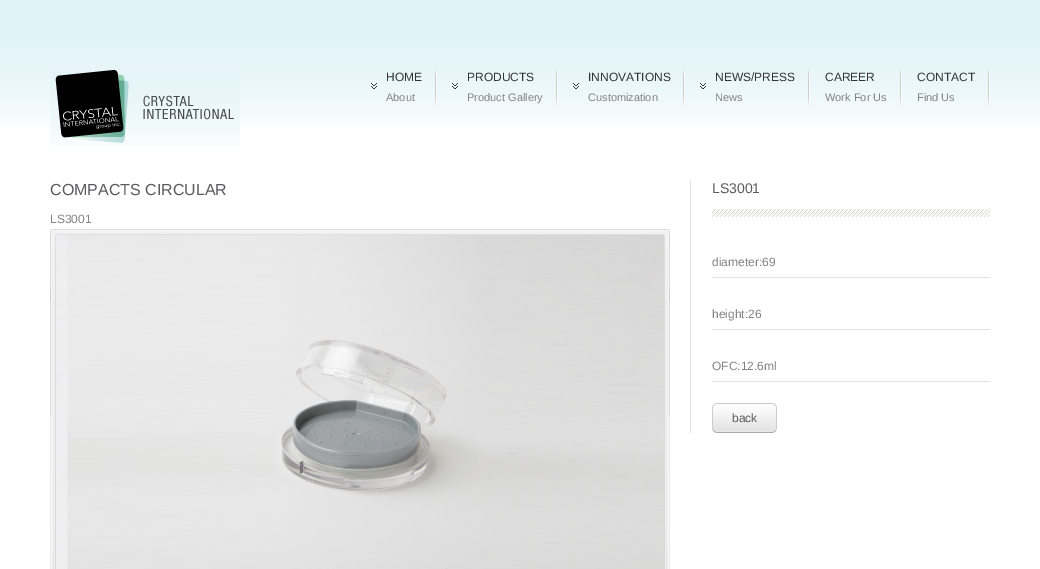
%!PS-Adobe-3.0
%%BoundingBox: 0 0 1040 569
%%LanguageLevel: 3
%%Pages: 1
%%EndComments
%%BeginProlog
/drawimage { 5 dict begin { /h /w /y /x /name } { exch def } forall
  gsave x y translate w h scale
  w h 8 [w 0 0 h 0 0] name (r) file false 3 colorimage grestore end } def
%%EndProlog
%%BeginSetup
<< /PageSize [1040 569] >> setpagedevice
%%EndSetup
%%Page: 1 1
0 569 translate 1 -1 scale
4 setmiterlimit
1 setgray
0 0 1040 569 rectfill
0.882 0.953 0.969 setrgbcolor
0 0 1040 37 rectfill
(images/1.raw) 0 37 1040 89 drawimage
(images/2.raw) 50 70 190 76 drawimage
(images/3.raw) 435 68 2 37 drawimage
(images/4.raw) 371 83 6 6 drawimage
(images/3.raw) 556 68 2 37 drawimage
(images/4.raw) 452 83 6 6 drawimage
(images/3.raw) 683 68 2 37 drawimage
(images/4.raw) 573 83 6 6 drawimage
(images/3.raw) 808 68 2 37 drawimage
(images/4.raw) 700 83 6 6 drawimage
(images/3.raw) 900 68 2 37 drawimage
(images/3.raw) 988 68 2 37 drawimage
(images/5.raw) 50 229 620 340 drawimage
0.886 setgray
690 180 1 253 rectfill
(images/6.raw) 712 209 278 8 drawimage
712 277 278 1 rectfill
712 329 278 1 rectfill
712 381 278 1 rectfill
(images/7.raw) 757 403 20 30 drawimage
(images/8.raw) 712 403 45 30 drawimage
/LiberationSans-Regular [12 0 0 -12 0 0] selectfont
0.2 setgray
386 81 moveto (HOME) show
/LiberationSans-Regular [11 0 0 -11 0 0] selectfont
0.518 0.514 0.514 setrgbcolor
386 101 moveto (About) show
/LiberationSans-Regular [12 0 0 -12 0 0] selectfont
0.2 setgray
467 81 moveto (PRODUCTS) show
/LiberationSans-Regular [11 0 0 -11 0 0] selectfont
0.518 0.514 0.514 setrgbcolor
467 101 moveto (Product Gallery) show
/LiberationSans-Regular [12 0 0 -12 0 0] selectfont
0.2 setgray
588 81 moveto (INNOVATIONS) show
/LiberationSans-Regular [11 0 0 -11 0 0] selectfont
0.518 0.514 0.514 setrgbcolor
588 101 moveto (Customization) show
/LiberationSans-Regular [12 0 0 -12 0 0] selectfont
0.2 setgray
715 81 moveto (NEWS/PRESS) show
/LiberationSans-Regular [11 0 0 -11 0 0] selectfont
0.518 0.514 0.514 setrgbcolor
715 101 moveto (News) show
/LiberationSans-Regular [12 0 0 -12 0 0] selectfont
0.2 setgray
825 81 moveto (CAREER) show
/LiberationSans-Regular [11 0 0 -11 0 0] selectfont
0.518 0.514 0.514 setrgbcolor
825 101 moveto (Work For Us) show
/LiberationSans-Regular [12 0 0 -12 0 0] selectfont
0.2 setgray
917 81 moveto (CONTACT) show
/LiberationSans-Regular [11 0 0 -11 0 0] selectfont
0.518 0.514 0.514 setrgbcolor
917 101 moveto (Find Us) show
/LiberationSans-Regular [16 0 0 -16 0 0] selectfont
0.357 0.357 0.365 setrgbcolor
50 195 moveto (COMPACTS CIRCULAR) show
/LiberationSans-Regular [12 0 0 -12 0 0] selectfont
0.518 0.514 0.514 setrgbcolor
50 223 moveto (LS3001) show
/LiberationSans-Regular [14 0 0 -14 0 0] selectfont
0.357 0.357 0.365 setrgbcolor
712 193 moveto (LS3001) show
/LiberationSans-Regular [12 0 0 -12 0 0] selectfont
0.518 0.514 0.514 setrgbcolor
712 266 moveto (diameter:69) show
712 318 moveto (height:26) show
712 370 moveto (OFC:12.6ml) show
0.357 0.357 0.365 setrgbcolor
732 422 moveto (back) show
showpage
%%EOF
